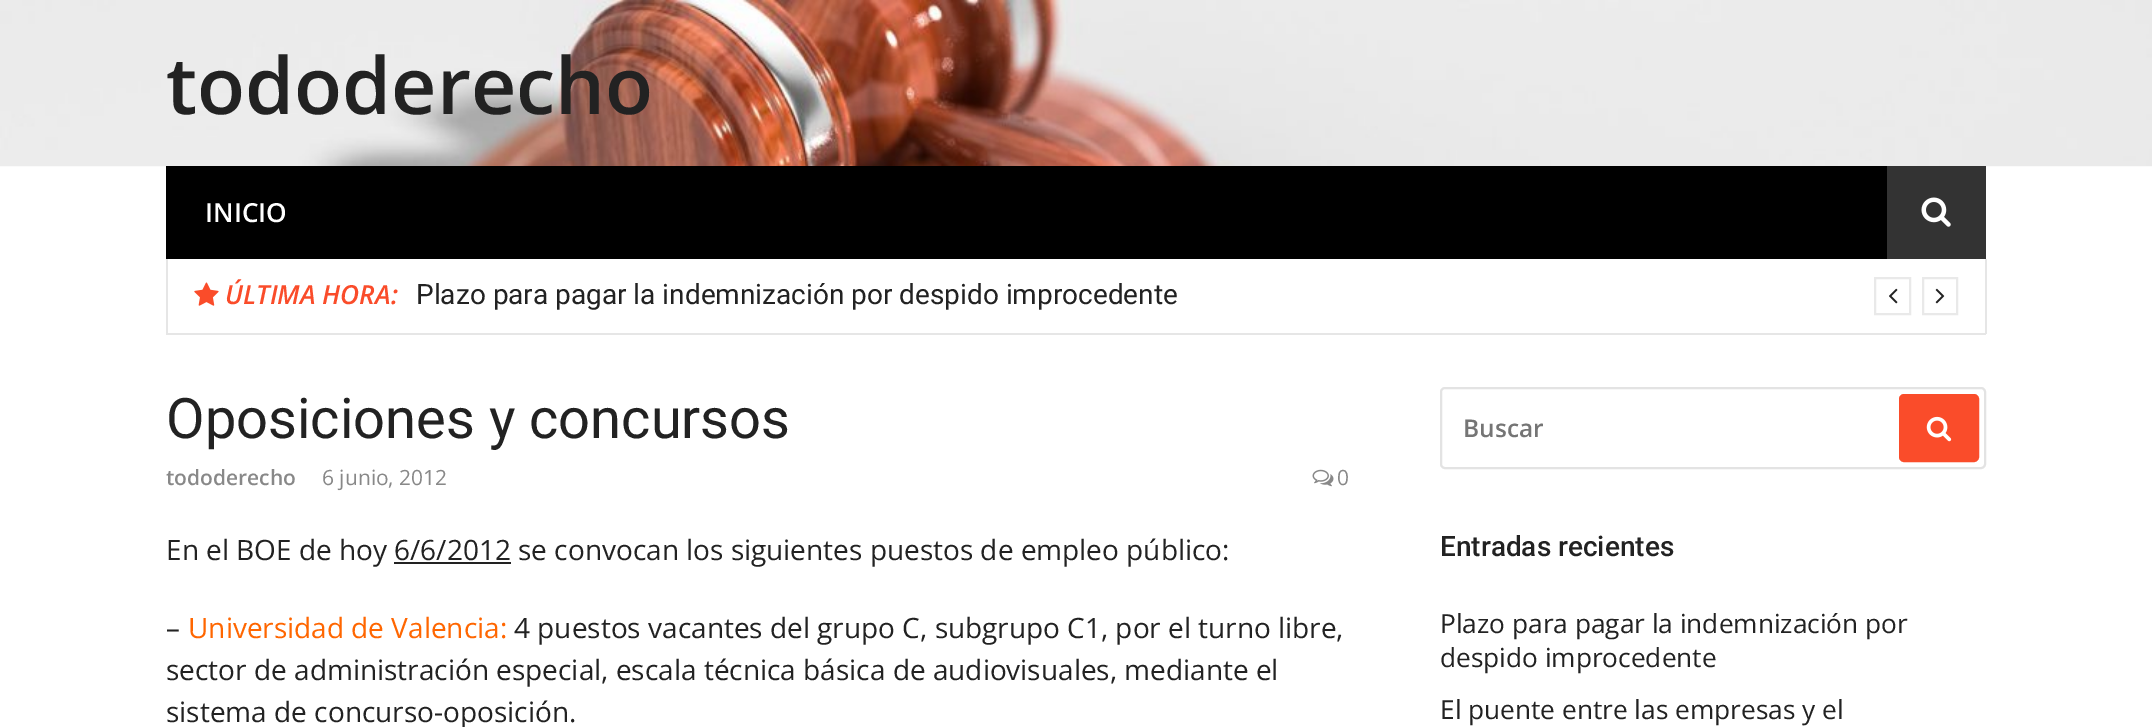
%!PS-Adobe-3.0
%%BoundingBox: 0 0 2152 727
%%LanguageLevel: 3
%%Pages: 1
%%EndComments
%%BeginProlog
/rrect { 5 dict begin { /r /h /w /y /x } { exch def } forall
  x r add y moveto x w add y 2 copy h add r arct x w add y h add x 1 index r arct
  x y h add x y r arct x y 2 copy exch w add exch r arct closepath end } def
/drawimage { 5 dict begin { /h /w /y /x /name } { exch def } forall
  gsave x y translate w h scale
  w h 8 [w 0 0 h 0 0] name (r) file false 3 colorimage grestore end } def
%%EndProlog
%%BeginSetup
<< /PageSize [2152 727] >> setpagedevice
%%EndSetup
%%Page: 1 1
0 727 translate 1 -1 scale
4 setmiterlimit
1 setgray
0 0 2152 727 rectfill
(images/1.raw) 0 0 2152 167 drawimage
0 setgray
166 166 1721 93 rectfill
0.2 setgray
1887 166 99 93 rectfill
(images/2.raw) 1921 197 30 30 drawimage
0.902 setgray
1985 259 2 75 rectfill
166 333 1820 2 rectfill
166 259 2 75 rectfill
(images/3.raw) 194 282 25 24 drawimage
0.914 setgray
2 setlinewidth
1875 278 35 36 rectstroke
(images/4.raw) 1889 288 9 16 drawimage
1923 278 34 36 rectstroke
(images/5.raw) 1935 288 10 16 drawimage
(images/6.raw) 1312 469 22 18 drawimage
0.133 setgray
394 562 117 2 rectfill
0.89 setgray
1441 388 544 80 4 rrect stroke
0.98 0.298 0.165 setrgbcolor
1900 395 78 66 4 rrect gsave fill grestore
stroke
(images/7.raw) 1926 416 26 26 drawimage
/OpenSans-SemiBold [78.75 0 0 -78.75 0 0] selectfont
0.133 setgray
166 114 moveto (tododerecho) show
/OpenSans-SemiBold [26.25 0 0 -26.25 0 0] selectfont
1 setgray
205 222 moveto (INICIO) show
/OpenSans-SemiBoldItalic [26.25 0 0 -26.25 0 0] selectfont
0.98 0.298 0.165 setrgbcolor
225 304 moveto (ÚLTIMA HORA:) show
/Roboto-Regular [28 0 0 -28 0 0] selectfont
0.133 setgray
416 304 moveto (Plazo para pagar la indemnización por despido improcedente) show
/Roboto-Regular [56 0 0 -56 0 0] selectfont
166 438 moveto (Oposiciones y concursos) show
/OpenSans-SemiBold [21 0 0 -21 0 0] selectfont
0.533 setgray
166 485 moveto (tododerecho) show
/OpenSans-Regular [21 0 0 -21 0 0] selectfont
322 485 moveto (6 junio, 2012) show
1337 485 moveto (0) show
/OpenSans-Regular [28 0 0 -28 0 0] selectfont
0.133 setgray
166 560 moveto (En el BOE de hoy 6/6/2012 se convocan los siguientes puestos de empleo público:) show
166 638 moveto (–) show
1 0.4 0 setrgbcolor
188 638 moveto (Universidad de Valencia:) show
0.133 setgray
514 638 moveto (4 puestos vacantes del grupo C, subgrupo C1, por el turno libre,) show
166 680 moveto (sector de administración especial, escala técnica básica de audiovisuales, mediante el) show
166 722 moveto (sistema de concurso-oposición.) show
/OpenSans-SemiBold [24.5 0 0 -24.5 0 0] selectfont
0.459 setgray
1463 437 moveto (Buscar) show
/Roboto-Medium [28 0 0 -28 0 0] selectfont
0.133 setgray
1440 556 moveto (Entradas recientes) show
/OpenSans-Regular [26.25 0 0 -26.25 0 0] selectfont
1440 633 moveto (Plazo para pagar la indemnización por) show
1440 667 moveto (despido improcedente) show
1440 719 moveto (El puente entre las empresas y el) show
showpage
%%EOF
